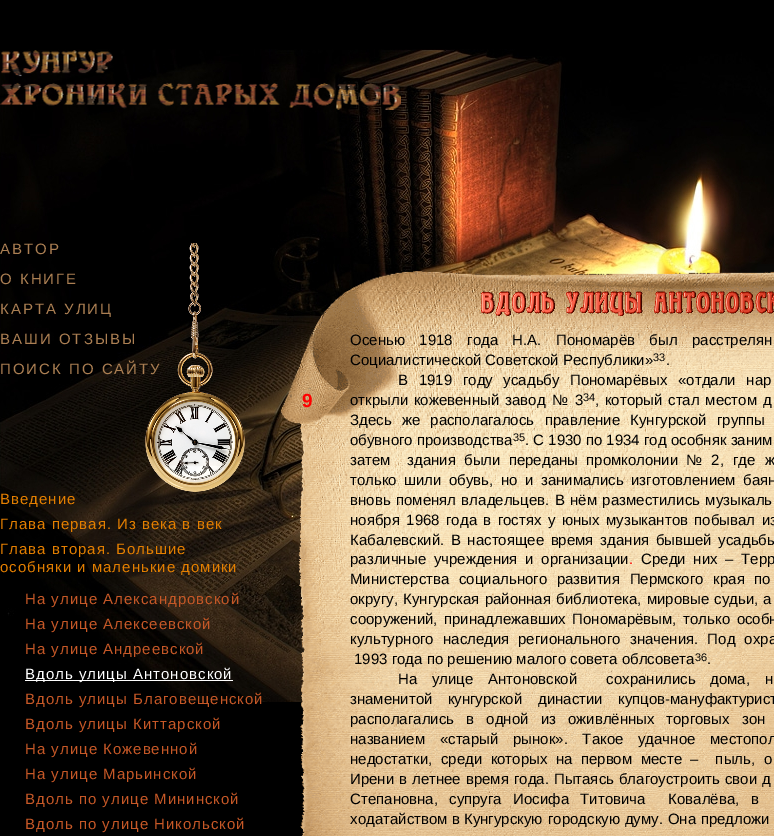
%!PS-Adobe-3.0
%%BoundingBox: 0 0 774 836
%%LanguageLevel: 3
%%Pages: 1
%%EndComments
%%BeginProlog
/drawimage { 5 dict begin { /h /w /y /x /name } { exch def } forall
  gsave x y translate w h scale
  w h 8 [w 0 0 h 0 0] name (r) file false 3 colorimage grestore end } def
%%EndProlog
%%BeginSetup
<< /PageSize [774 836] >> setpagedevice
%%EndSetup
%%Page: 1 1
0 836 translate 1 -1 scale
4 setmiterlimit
0 setgray
0 0 774 836 rectfill
(images/1.raw) 0 49 774 653 drawimage
(images/2.raw) 0 50 401 60 drawimage
(images/3.raw) 145 243 100 249 drawimage
(images/4.raw) 281 271 493 565 drawimage
(images/5.raw) 481 291 293 25 drawimage
1 setgray
25 680 208 1 rectfill
/LiberationSans-Regular [15 0 0 -15 0 0] selectfont
0.671 0.498 0.325 setrgbcolor
0 254 moveto 2 0 (АВТОР) ashow
0 284 moveto 2 0 (О КНИГЕ) ashow
0 314 moveto 2 0 (КАРТА УЛИЦ) ashow
0 344 moveto 2 0 (ВАШИ ОТЗЫВЫ) ashow
0 setgray
350 345 moveto 10.25 0 32 (Осенью 1918 года Н.А. Пономарёв был расстрелян) widthshow
350 365 moveto (Социалистической Советской Республики») show
/LiberationSans-Regular [11 0 0 -11 0 0] selectfont
653 361 moveto (33) show
/LiberationSans-Regular [15 0 0 -15 0 0] selectfont
666 365 moveto (.) show
398 385 moveto 6.5 0 32 (В 1919 году усадьбу Пономарёвых «отдали нар) widthshow
350 405 moveto 1.5 0 32 (открыли кожевенный) widthshow
505 405 moveto 2.5 0 32 (завод № 3) widthshow
/LiberationSans-Regular [11 0 0 -11 0 0] selectfont
583 401 moveto (34) show
/LiberationSans-Regular [15 0 0 -15 0 0] selectfont
595 405 moveto 1.5 0 32 (, который стал местом д) widthshow
350 425 moveto 6 0 32 (Здесь же располагалось) widthshow
545 425 moveto 6 0 32 (правление Кунгурской группы) widthshow
350 445 moveto (обувного производства) show
/LiberationSans-Regular [11 0 0 -11 0 0] selectfont
513 441 moveto (35) show
/LiberationSans-Regular [15 0 0 -15 0 0] selectfont
525 445 moveto (. С 1930 по 1934 год особняк заним) show
350 465 moveto 4 0 32 (затем  здания были переданы промколонии) widthshow
686 465 moveto 5 0 32 (№ 2, где ж) widthshow
350 485 moveto 3.25 0 32 (только шили обувь, но и занимались изготовлением) widthshow
743 485 moveto 3.25 0 32 (баян) widthshow
350 505 moveto 1.25 0 32 (вновь поменял владельцев. В нём разместились музыкаль) widthshow
350 525 moveto 2.25 0 32 (ноября 1968 года в гостях у юных музыкантов побывал из) widthshow
350 545 moveto 2.5 0 32 (Кабалевский. В настоящее время здания бывшей усадьбы) widthshow
350 564 moveto 3.5 0 32 (различные учреждения и организации) widthshow
1 0 0 setrgbcolor
629 564 moveto (.) show
0 setgray
641 564 moveto 3.5 0 32 (Среди них – Терр) widthshow
350 584 moveto 5.5 0 32 (Министерства социального развития Пермского края по) widthshow
350 604 moveto (округу,) show
403 604 moveto 1 0 32 (Кунгурская районная библиотека, мировые судьи, а) widthshow
350 624 moveto (сооружений,) show
444 624 moveto 2.5 0 32 (принадлежавших Пономарёвым, только особн) widthshow
350 644 moveto 5 0 32 (культурного наследия) widthshow
518 644 moveto 5 0 32 (регионального значения. Под охра) widthshow
354 664 moveto (1993 года по решению малого совета облсовета) show
/LiberationSans-Regular [11 0 0 -11 0 0] selectfont
695 661 moveto (36) show
/LiberationSans-Regular [15 0 0 -15 0 0] selectfont
707 664 moveto (.) show
398 684 moveto 10.5 0 32 (На улице Антоновской  сохранились дома, н) widthshow
350 704 moveto 11 0 32 (знаменитой кунгурской) widthshow
538 704 moveto 11 0 32 (династии купцов-мануфактурист) widthshow
350 724 moveto 8 0 32 (располагались в одной из оживлённых) widthshow
666 724 moveto 8 0 32 (торговых зон) widthshow
350 744 moveto 10.5 0 32 (названием «старый рынок». Такое удачное местопол) widthshow
350 764 moveto 4.25 0 32 (недостатки, среди которых на первом месте –  пыль, о) widthshow
350 784 moveto 0.75 0 32 (Ирени в летнее время года. Пытаясь благоустроить свои д) widthshow
350 804 moveto (Степановна,) show
449 804 moveto 7.25 0 32 (супруга Иосифа Титовича  Ковалёва, в) widthshow
350 824 moveto (ходатайством в Кунгурскую) show
548 824 moveto 0.5 0 32 (городскую думу. Она предложи) widthshow
0.671 0.498 0.325 setrgbcolor
0 374 moveto 2 0 (ПОИСК ПО САЙТУ) ashow
/LiberationSans-Bold [19 0 0 -19 0 0] selectfont
1 0 0 setrgbcolor
302 407 moveto (9) show
/LiberationSans-Regular [15 0 0 -15 0 0] selectfont
0.894 0.498 0 setrgbcolor
0 504 moveto 1 0 (Введение) ashow
0 529 moveto 1 0 (Глава первая. Из века в век) ashow
0 554 moveto 1 0 (Глава вторая. Большие) ashow
0 572 moveto 1 0 (особняки и маленькие домики) ashow
0.776 0.345 0.153 setrgbcolor
25 604 moveto 1 0 (На улице Александровской) ashow
25 629 moveto 1 0 (На улице Алексеевской) ashow
25 654 moveto 1 0 (На улице Андреевской) ashow
1 setgray
25 679 moveto 1 0 (Вдоль улицы Антоновской) ashow
0.776 0.345 0.153 setrgbcolor
25 704 moveto 1 0 (Вдоль улицы Благовещенской) ashow
25 729 moveto 1 0 (Вдоль улицы Киттарской) ashow
25 754 moveto 1 0 (На улице Кожевенной) ashow
25 779 moveto 1 0 (На улице Марьинской) ashow
25 804 moveto 1 0 (Вдоль по улице Мининской) ashow
25 829 moveto 1 0 (Вдоль по улице Никольской) ashow
showpage
%%EOF
